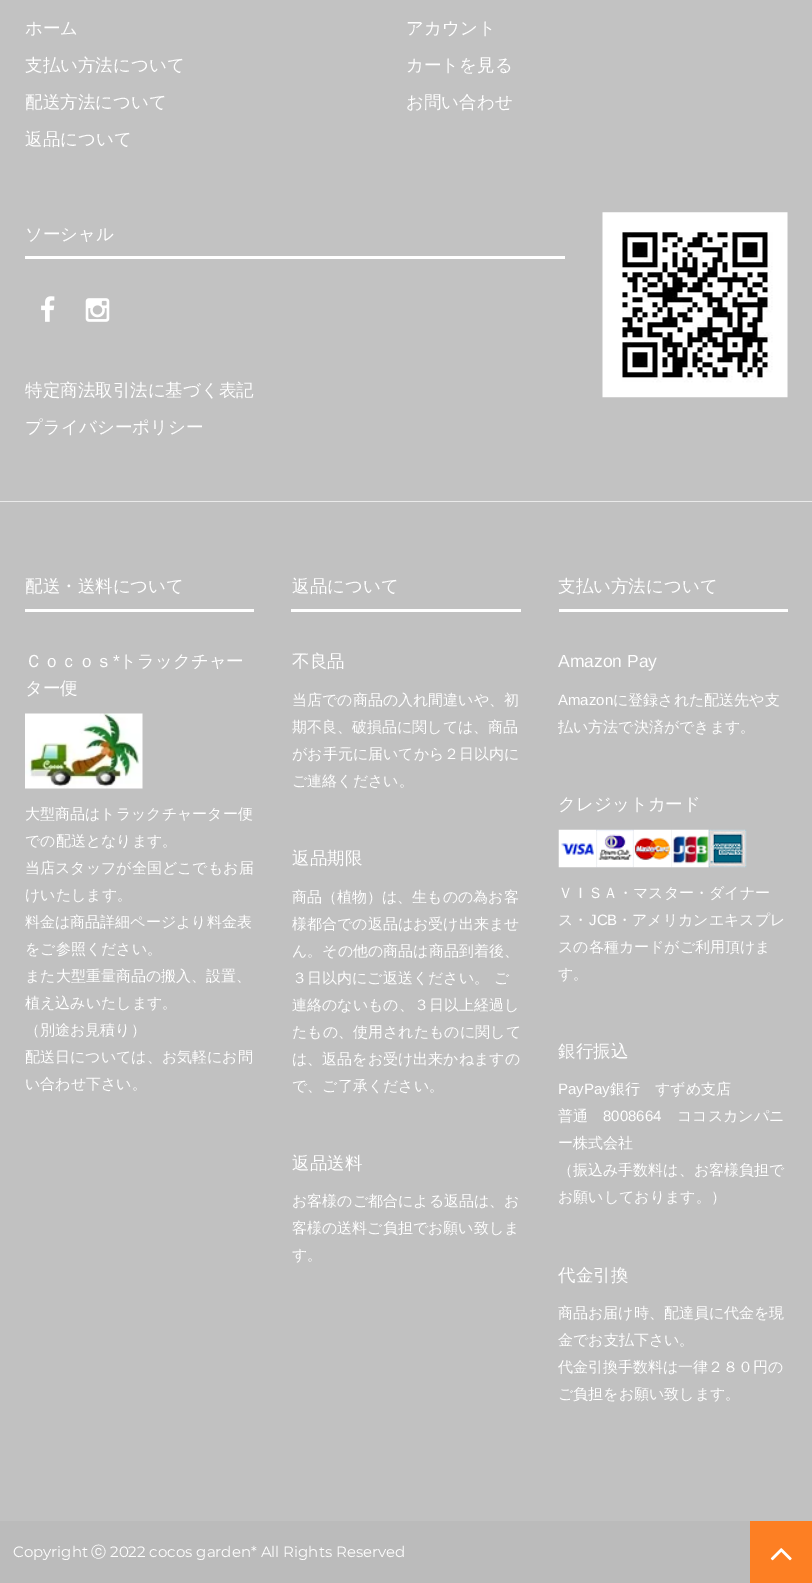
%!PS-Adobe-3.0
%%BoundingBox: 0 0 812 1583
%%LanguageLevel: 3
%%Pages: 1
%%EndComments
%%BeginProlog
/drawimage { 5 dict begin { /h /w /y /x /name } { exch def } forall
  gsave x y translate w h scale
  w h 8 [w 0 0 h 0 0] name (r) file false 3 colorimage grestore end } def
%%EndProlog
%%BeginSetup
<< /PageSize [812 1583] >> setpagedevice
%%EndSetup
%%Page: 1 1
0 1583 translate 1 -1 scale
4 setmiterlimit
0.733 setgray
0 0 812 1583 rectfill
0.761 setgray
0 0 812 501 rectfill
1 setgray
25 256 540 3 rectfill
(images/1.raw) 602 212 186 186 drawimage
(images/2.raw) 41 296 14 26 drawimage
(images/3.raw) 85 298 25 24 drawimage
0.757 setgray
0 502 812 1019 rectfill
0.918 setgray
0 501 812 1 rectfill
1 setgray
25 609 229 3 rectfill
(images/4.raw) 25 713 118 76 drawimage
291 609 230 3 rectfill
559 609 229 3 rectfill
(images/5.raw) 558 829 39 39 drawimage
(images/6.raw) 596 829 38 39 drawimage
(images/7.raw) 633 829 39 39 drawimage
(images/8.raw) 671 829 38 39 drawimage
(images/9.raw) 708 829 39 39 drawimage
0.992 0.498 0.137 setrgbcolor
750 1521 62 62 rectfill
(images/10.raw) 770 1548 22 13 drawimage
/WenQuanYiZenHei-Medium [17.5 0 0 -17.5 0 0] selectfont
1 setgray
25 34 moveto (ホーム) show
25 71 moveto (支払い方法について) show
25 108 moveto (配送方法について) show
25 145 moveto (返品について) show
406 34 moveto (アカウント) show
406 71 moveto (カートを見る) show
406 108 moveto (お問い合わせ) show
25 240 moveto (ソーシャル) show
25 396 moveto (特定商法取引法に基づく表記) show
25 433 moveto (プライバシーポリシー) show
25 592 moveto (配送・送料について) show
25 667 moveto (Ｃｏｃｏｓ) show
/LiberationSans-Regular [17.5 0 0 -17.5 0 0] selectfont
113 667 moveto (*) show
/WenQuanYiZenHei-Medium [17.5 0 0 -17.5 0 0] selectfont
119 667 moveto (トラックチャー) show
25 694 moveto (ター便) show
/WenQuanYiZenHei-Medium [15 0 0 -15 0 0] selectfont
25 819 moveto (大型商品はトラックチャーター便) show
25 846 moveto (での配送となります。) show
25 873 moveto (当店スタッフが全国どこでもお届) show
25 900 moveto (けいたします。) show
25 927 moveto (料金は商品詳細ページより料金表) show
25 954 moveto (をご参照ください。) show
25 981 moveto (また大型重量商品の搬入、設置、) show
25 1008 moveto (植え込みいたします。) show
25 1035 moveto (（別途お見積り）) show
25 1062 moveto (配送日については、お気軽にお問) show
25 1089 moveto (い合わせ下さい。) show
/WenQuanYiZenHei-Medium [17.5 0 0 -17.5 0 0] selectfont
292 592 moveto (返品について) show
292 667 moveto (不良品) show
/WenQuanYiZenHei-Medium [15 0 0 -15 0 0] selectfont
292 705 moveto (当店での商品の入れ間違いや、初) show
292 732 moveto (期不良、破損品に関しては、商品) show
292 759 moveto (がお手元に届いてから２日以内に) show
292 786 moveto (ご連絡ください。) show
/WenQuanYiZenHei-Medium [17.5 0 0 -17.5 0 0] selectfont
292 864 moveto (返品期限) show
/WenQuanYiZenHei-Medium [15 0 0 -15 0 0] selectfont
292 902 moveto (商品（植物）は、生ものの為お客) show
292 929 moveto (様都合での返品はお受け出来ませ) show
292 956 moveto (ん。その他の商品は商品到着後、) show
292 983 moveto (３日以内にご返送ください。 ご) show
292 1010 moveto (連絡のないもの、３日以上経過し) show
292 1037 moveto (たもの、使用されたものに関して) show
292 1064 moveto (は、返品をお受け出来かねますの) show
292 1091 moveto (で、ご了承ください。) show
/WenQuanYiZenHei-Medium [17.5 0 0 -17.5 0 0] selectfont
292 1169 moveto (返品送料) show
/WenQuanYiZenHei-Medium [15 0 0 -15 0 0] selectfont
292 1206 moveto (お客様のご都合による返品は、お) show
292 1233 moveto (客様の送料ご負担でお願い致しま) show
292 1260 moveto (す。) show
/WenQuanYiZenHei-Medium [17.5 0 0 -17.5 0 0] selectfont
558 592 moveto (支払い方法について) show
/LiberationSans-Regular [17.5 0 0 -17.5 0 0] selectfont
558 667 moveto (Amazon Pay) show
/LiberationSans-Regular [15 0 0 -15 0 0] selectfont
558 705 moveto (Amazon) show
/WenQuanYiZenHei-Medium [15 0 0 -15 0 0] selectfont
613 705 moveto (に登録された配送先や支) show
558 732 moveto (払い方法で決済ができます。) show
/WenQuanYiZenHei-Medium [17.5 0 0 -17.5 0 0] selectfont
558 810 moveto (クレジットカード) show
/WenQuanYiZenHei-Medium [15 0 0 -15 0 0] selectfont
558 898 moveto (ＶＩＳＡ・マスター・ダイナー) show
558 925 moveto (ス・) show
/LiberationSans-Regular [15 0 0 -15 0 0] selectfont
589 925 moveto (JCB) show
/WenQuanYiZenHei-Medium [15 0 0 -15 0 0] selectfont
617 925 moveto (・アメリカンエキスプレ) show
558 952 moveto (スの各種カードがご利用頂けま) show
558 979 moveto (す。) show
/WenQuanYiZenHei-Medium [17.5 0 0 -17.5 0 0] selectfont
558 1057 moveto (銀行振込) show
/LiberationSans-Regular [15 0 0 -15 0 0] selectfont
558 1094 moveto (PayPay) show
/WenQuanYiZenHei-Medium [15 0 0 -15 0 0] selectfont
610 1094 moveto (銀行　すずめ支店) show
558 1121 moveto (普通) show
/LiberationSans-Regular [15 0 0 -15 0 0] selectfont
603 1121 moveto (8008664) show
/WenQuanYiZenHei-Medium [15 0 0 -15 0 0] selectfont
677 1121 moveto (ココスカンパニ) show
558 1148 moveto (ー株式会社) show
558 1175 moveto (（振込み手数料は、お客様負担で) show
558 1202 moveto (お願いしております。）) show
/WenQuanYiZenHei-Medium [17.5 0 0 -17.5 0 0] selectfont
558 1281 moveto (代金引換) show
/WenQuanYiZenHei-Medium [15 0 0 -15 0 0] selectfont
558 1318 moveto (商品お届け時、配達員に代金を現) show
558 1345 moveto (金でお支払下さい。) show
558 1372 moveto (代金引換手数料は一律２８０円の) show
558 1399 moveto (ご負担をお願い致します。) show
/Montserrat-Regular [15 0 0 -15 0 0] selectfont
13 1557 moveto (Copyright) show
/WenQuanYiZenHei-Medium [15 0 0 -15 0 0] selectfont
91 1557 moveto (ⓒ) show
/Montserrat-Regular [15 0 0 -15 0 0] selectfont
110 1557 moveto (2022 cocos garden* All Rights Reserved) show
showpage
%%EOF
